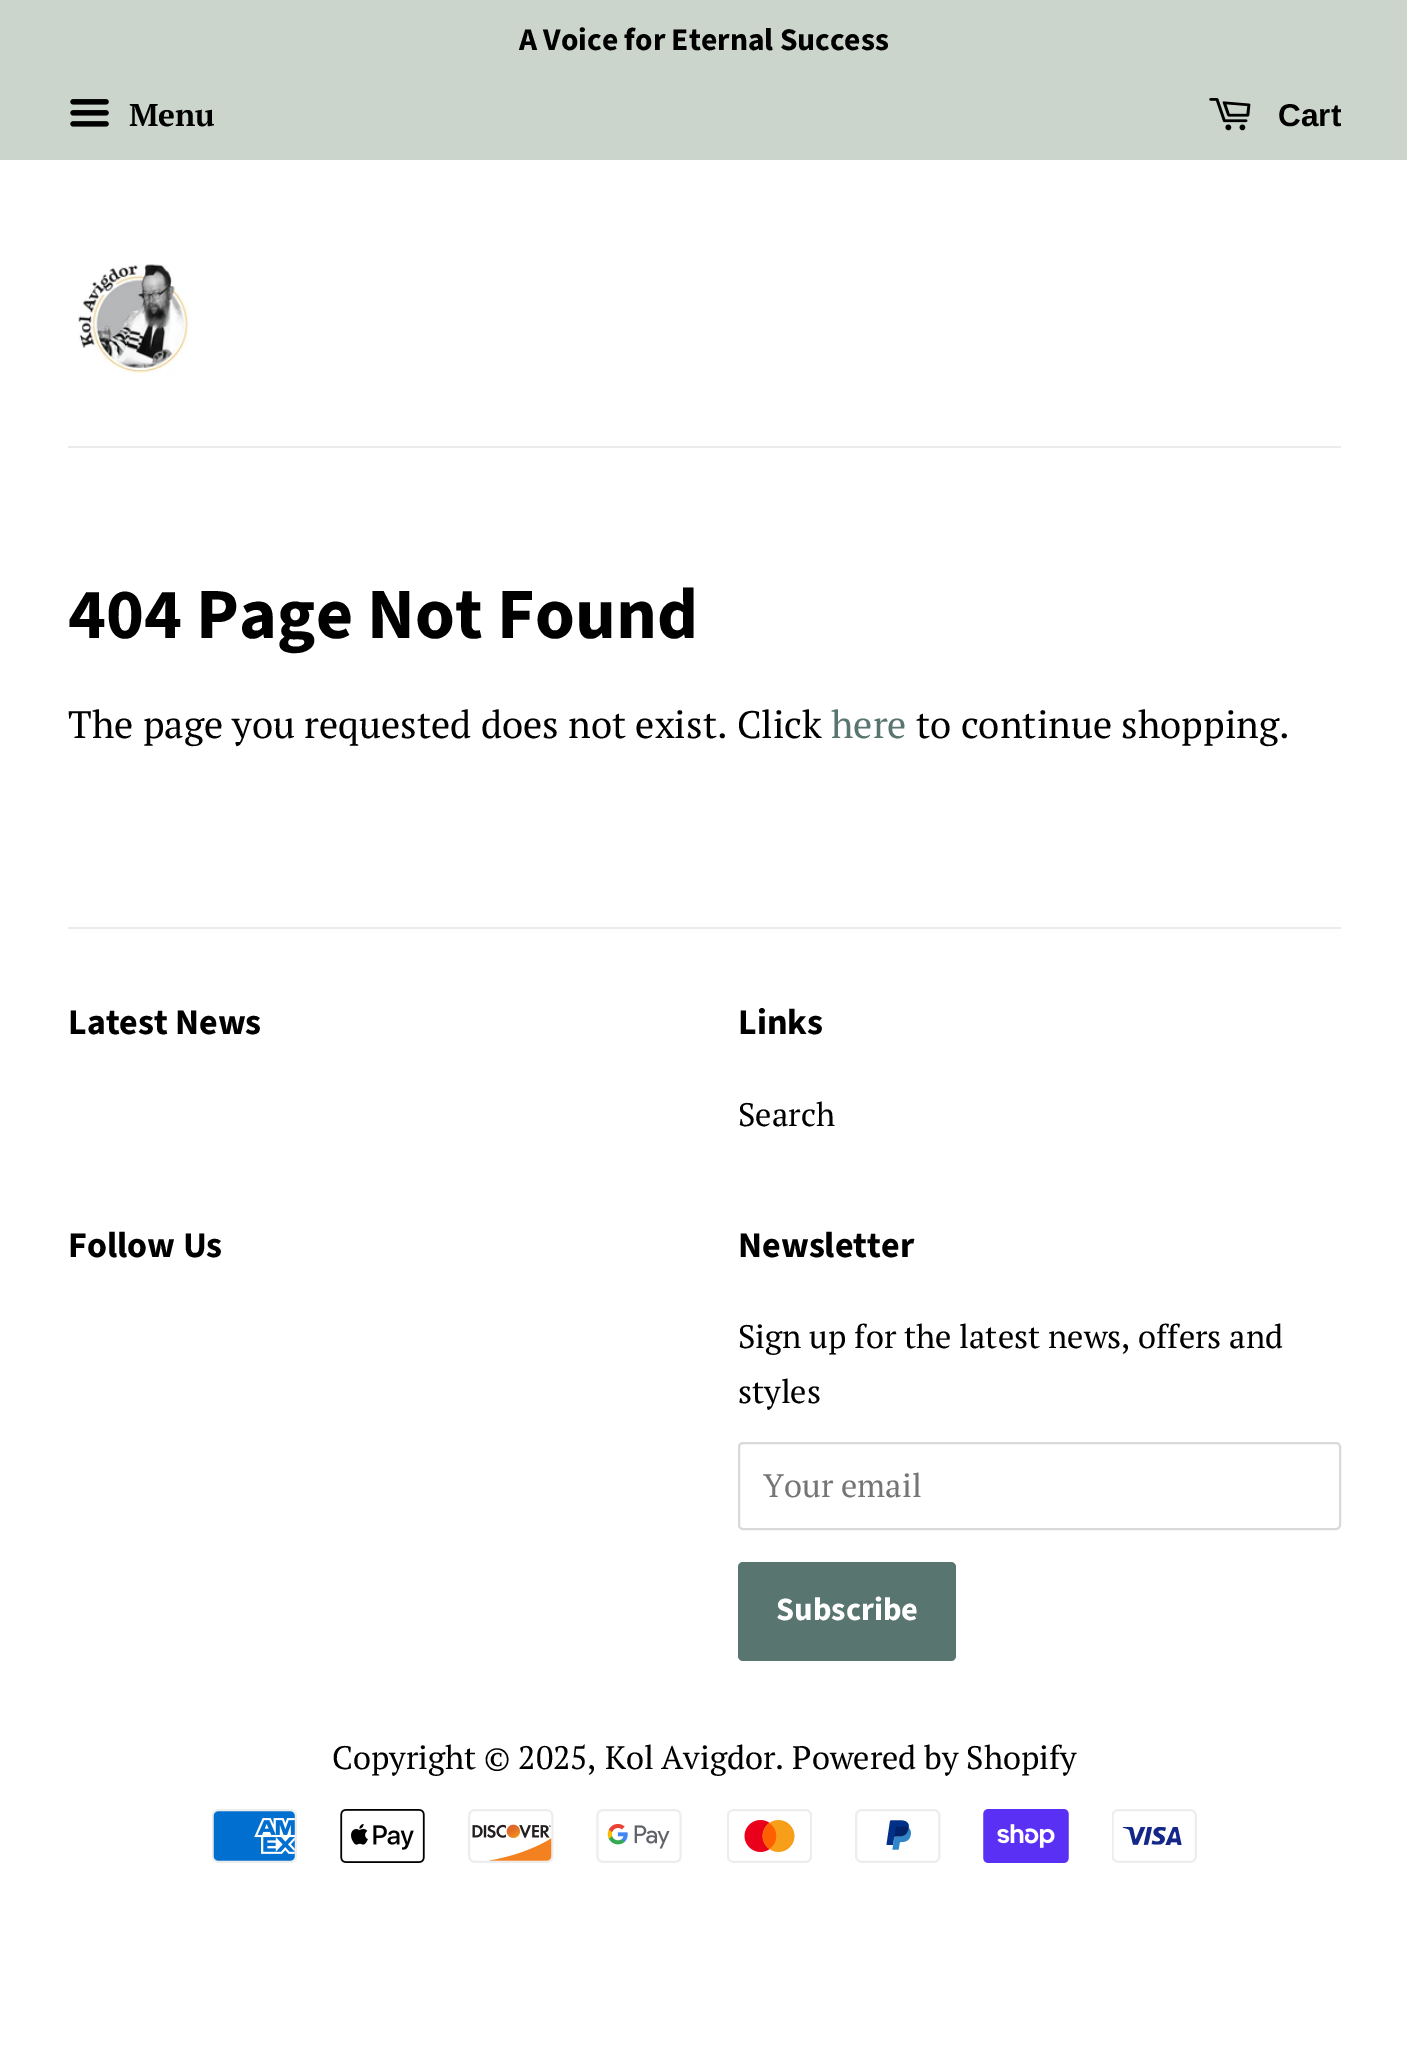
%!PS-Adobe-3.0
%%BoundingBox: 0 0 1407 2049
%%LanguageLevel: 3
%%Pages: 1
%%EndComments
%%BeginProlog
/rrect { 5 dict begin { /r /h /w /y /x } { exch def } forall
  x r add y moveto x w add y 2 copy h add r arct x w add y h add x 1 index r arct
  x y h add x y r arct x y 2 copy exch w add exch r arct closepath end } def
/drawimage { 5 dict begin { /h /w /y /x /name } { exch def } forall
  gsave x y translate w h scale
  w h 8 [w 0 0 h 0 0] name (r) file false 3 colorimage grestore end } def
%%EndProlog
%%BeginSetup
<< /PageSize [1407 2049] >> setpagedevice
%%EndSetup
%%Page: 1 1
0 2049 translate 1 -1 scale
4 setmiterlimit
1 setgray
0 0 1407 2049 rectfill
0.796 0.835 0.8 setrgbcolor
0 0 1407 160 rectfill
(images/1.raw) 70 99 39 28 drawimage
(images/2.raw) 1209 98 42 33 drawimage
0.922 setgray
68 446 1273 2 rectfill
(images/3.raw) 78 264 111 110 drawimage
68 927 1273 2 rectfill
0.851 setgray
2 setlinewidth
739 1443 601 86 4 rrect stroke
0.349 0.459 0.435 setrgbcolor
738 1562 218 99 5 rrect fill
(images/4.raw) 212 1809 85 54 drawimage
(images/5.raw) 340 1809 85 54 drawimage
(images/6.raw) 468 1809 86 54 drawimage
(images/7.raw) 596 1809 86 54 drawimage
(images/8.raw) 727 1809 85 54 drawimage
(images/9.raw) 855 1809 86 54 drawimage
(images/10.raw) 983 1809 86 54 drawimage
(images/11.raw) 1112 1809 85 54 drawimage
/SourceSansPro-Bold [31.5 0 0 -31.5 0 0] selectfont
0 setgray
519 50 moveto (A Voice for Eternal Success) show
/PTSerif-Bold [31.5 0 0 -31.5 0 0] selectfont
129 126 moveto (Menu) show
/LiberationSans-Bold [31.5 0 0 -31.5 0 0] selectfont
1278 126 moveto (Cart) show
/SourceSansPro-Bold [72 0 0 -72 0 0] selectfont
68 638 moveto (404 Page Not Found) show
/PTSerif-Regular [38.25 0 0 -38.25 0 0] selectfont
68 738 moveto (The page you requested does not exist. Click) show
0.349 0.459 0.435 setrgbcolor
831 738 moveto (here) show
0 setgray
916 738 moveto (to continue shopping.) show
/SourceSansPro-Bold [36 0 0 -36 0 0] selectfont
68 1034 moveto (Latest News) show
738 1034 moveto (Links) show
/PTSerif-Regular [32.5 0 0 -32.5 0 0] selectfont
738 1126 moveto (Search) show
/SourceSansPro-Bold [36 0 0 -36 0 0] selectfont
68 1257 moveto (Follow Us) show
738 1257 moveto (Newsletter) show
/PTSerif-Regular [32.5 0 0 -32.5 0 0] selectfont
738 1348 moveto (Sign up for the latest news, offers and) show
738 1403 moveto (styles) show
0.459 setgray
763 1497 moveto (Your email) show
/SourceSansPro-Bold [32.5 0 0 -32.5 0 0] selectfont
1 setgray
776 1620 moveto (Subscribe) show
/PTSerif-Regular [32.5 0 0 -32.5 0 0] selectfont
0 setgray
332 1769 moveto (Copyright © 2025, Kol Avigdor. Powered by Shopify) show
showpage
%%EOF
